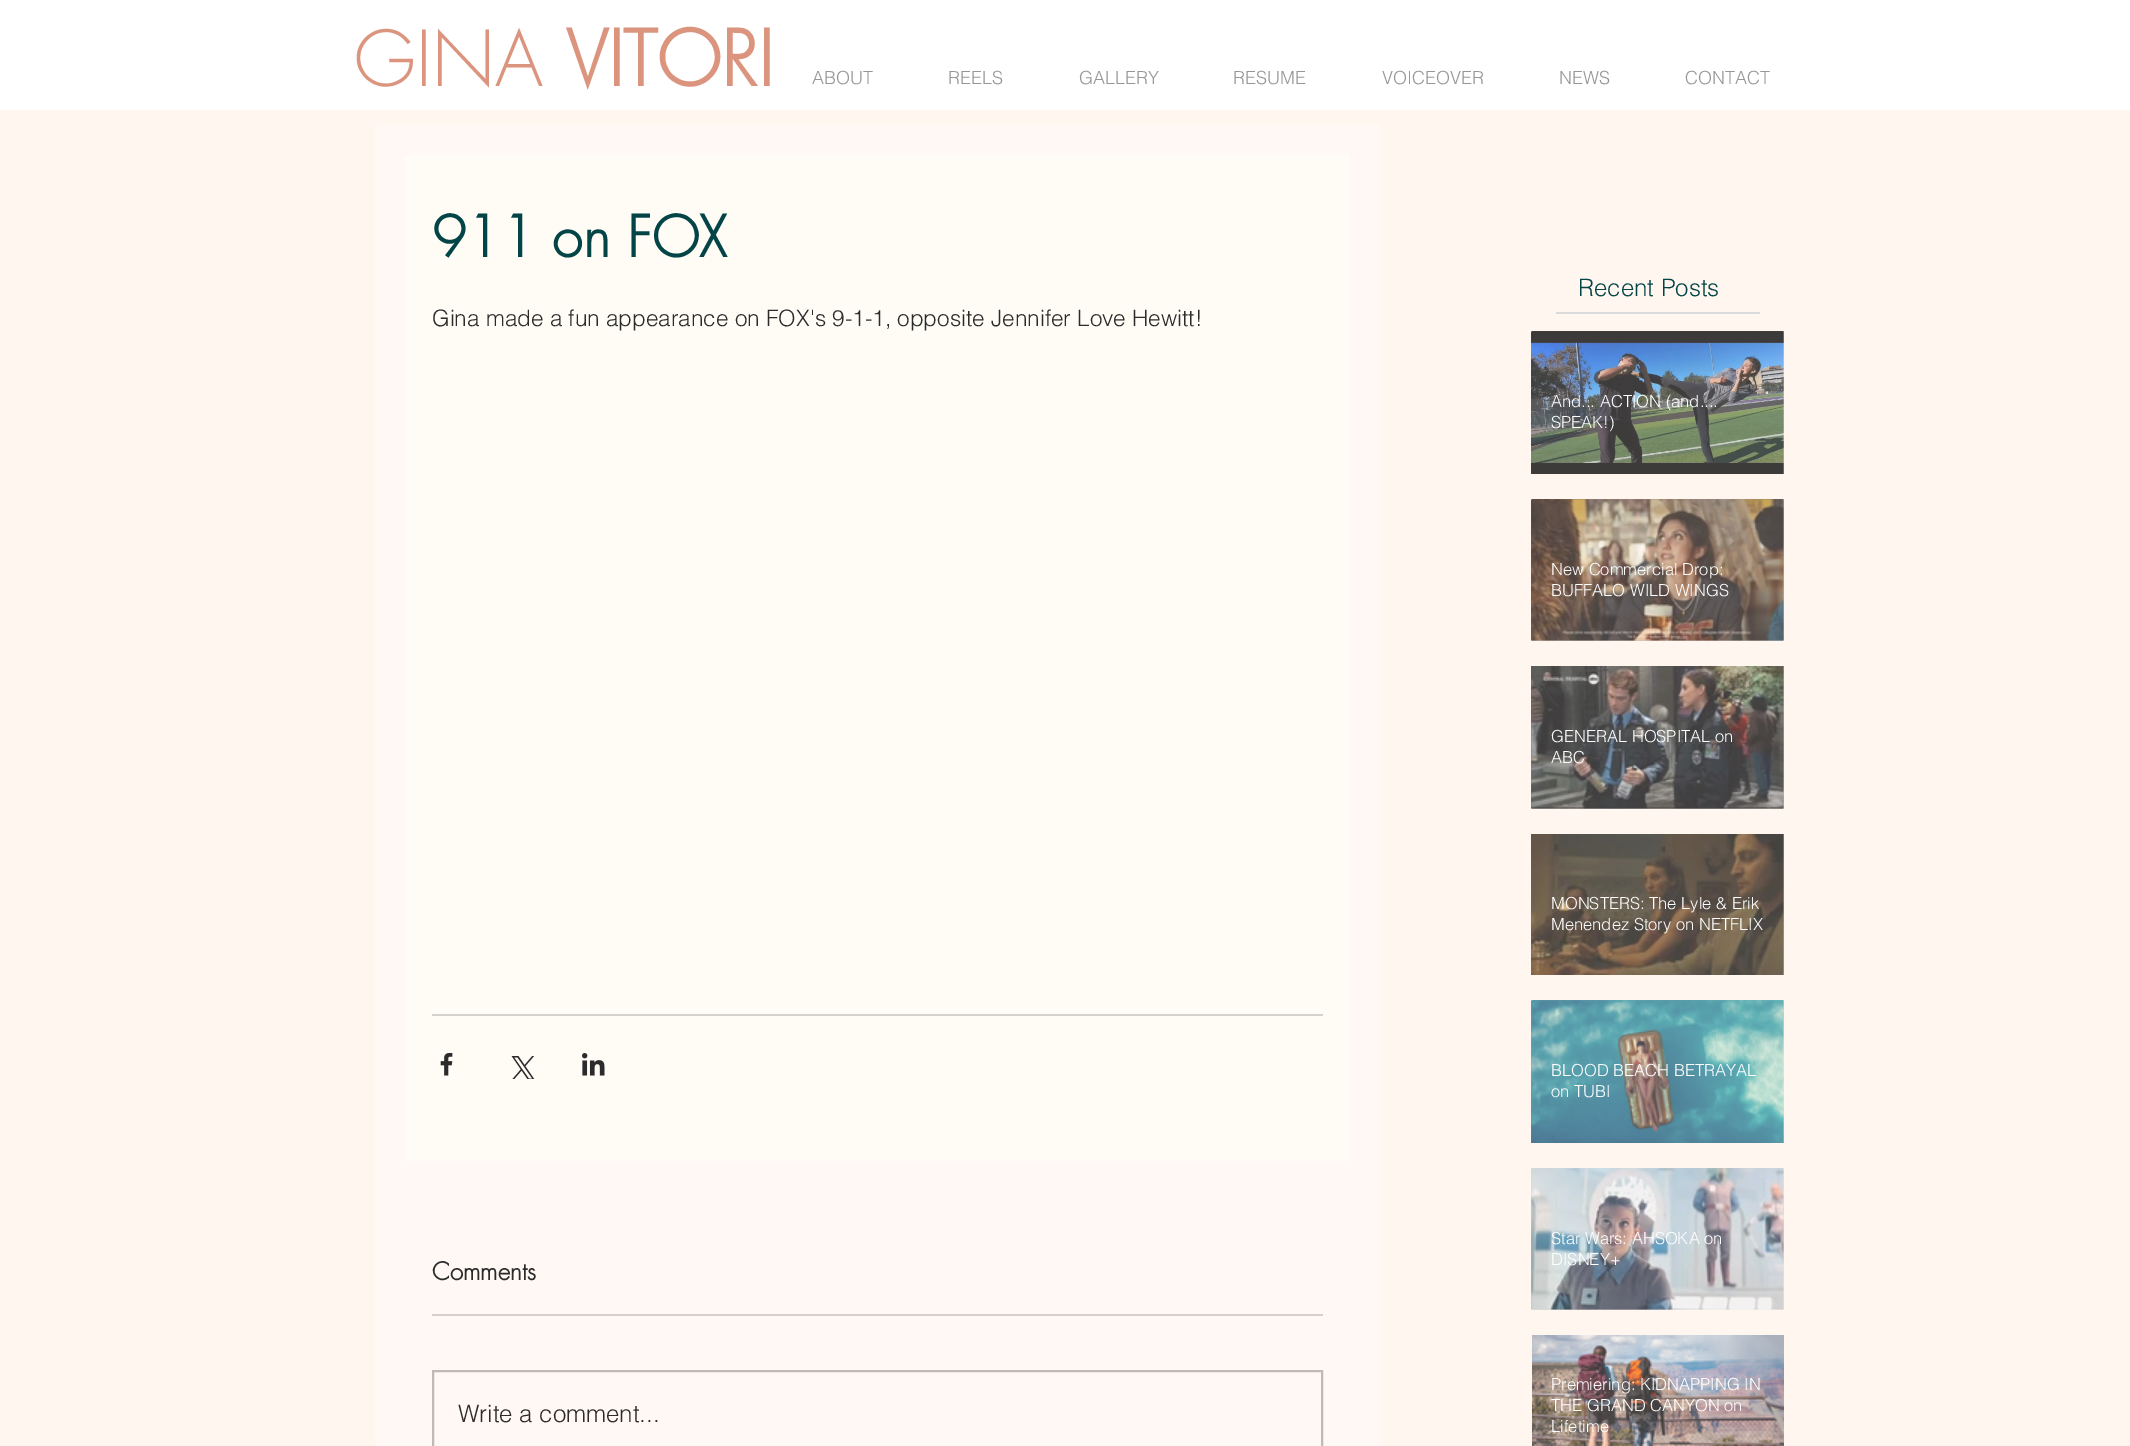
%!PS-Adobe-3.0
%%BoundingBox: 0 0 2130 1446
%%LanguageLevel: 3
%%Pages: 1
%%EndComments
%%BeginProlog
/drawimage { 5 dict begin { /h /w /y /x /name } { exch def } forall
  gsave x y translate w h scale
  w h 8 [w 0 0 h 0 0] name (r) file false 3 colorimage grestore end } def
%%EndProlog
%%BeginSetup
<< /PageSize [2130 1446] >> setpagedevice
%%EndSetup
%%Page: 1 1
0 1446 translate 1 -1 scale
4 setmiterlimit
1 0.965 0.941 setrgbcolor
0 0 2130 1446 rectfill
1 setgray
0 0 2130 110 rectfill
1 0.973 0.961 setrgbcolor
375 125 1005 1321 rectfill
1 0.988 0.965 setrgbcolor
405 155 945 1006 rectfill
0.835 0.824 0.804 setrgbcolor
432 1014 891 2 rectfill
(images/1.raw) 440 1053 13 23 drawimage
(images/2.raw) 511 1056 23 23 drawimage
(images/3.raw) 582 1053 23 23 drawimage
0.835 0.812 0.804 setrgbcolor
432 1314 891 2 rectfill
0.749 0.729 0.722 setrgbcolor
2 setlinewidth
433 1371 889 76 rectstroke
0.855 setgray
1556 312 204 2 rectfill
(images/4.raw) 1531 331 253 143 drawimage
(images/5.raw) 1531 331 253 143 drawimage
(images/6.raw) 1531 499 253 142 drawimage
(images/7.raw) 1531 499 253 142 drawimage
(images/8.raw) 1531 666 253 143 drawimage
(images/9.raw) 1531 666 253 143 drawimage
(images/10.raw) 1531 834 253 141 drawimage
(images/11.raw) 1531 834 253 141 drawimage
(images/12.raw) 1531 1000 253 143 drawimage
(images/13.raw) 1531 1000 253 143 drawimage
(images/14.raw) 1531 1168 253 142 drawimage
(images/15.raw) 1531 1168 253 142 drawimage
(images/16.raw) 1532 1335 252 111 drawimage
/futura-Light [75 0 0 -75 0 0] selectfont
0.859 0.584 0.498 setrgbcolor
354 86 moveto (GINA) show
/futura-Bold [75 0 0 -75 0 0] selectfont
566 86 moveto (VITORI) show
/helvetica-Light [18 0 0 -18 0 0] selectfont
0.592 0.584 0.584 setrgbcolor
812 84 moveto (ABOUT) show
948 84 moveto (REELS) show
1079 84 moveto (GALLERY) show
1233 84 moveto (RESUME) show
1382 84 moveto (VOICEOVER) show
1559 84 moveto (NEWS) show
1685 84 moveto (CONTACT) show
/futura-Bold [55.5 0 0 -55.5 0 0] selectfont
0.012 0.271 0.278 setrgbcolor
432 257 moveto (911 on FOX) show
/helvetica-Light [22.5 0 0 -22.5 0 0] selectfont
0.169 setgray
432 326 moveto (Gina made a fun appearance on FOX's 9-1-1, opposite Jennifer Love Hewitt!) show
/futura-Bold [24 0 0 -24 0 0] selectfont
432 1280 moveto (Comments) show
/helvetica-Light [24 0 0 -24 0 0] selectfont
458 1422 moveto (Write a comment...) show
0.012 0.271 0.278 setrgbcolor
1578 296 moveto (Recent Posts) show
/helvetica-Light [16.5 0 0 -16.5 0 0] selectfont
1 setgray
1551 407 moveto (And... ACTION \(and....) show
1551 428 moveto (SPEAK!\)) show
1551 575 moveto (New Commercial Drop:) show
1551 596 moveto (BUFFALO WILD WINGS) show
1551 742 moveto (GENERAL HOSPITAL on) show
1551 763 moveto (ABC) show
1551 909 moveto (MONSTERS: The Lyle & Erik) show
1551 930 moveto (Menendez Story on NETFLIX) show
1551 1076 moveto (BLOOD BEACH BETRAYAL) show
1551 1097 moveto (on TUBI) show
1551 1244 moveto (Star Wars: AHSOKA on) show
1551 1265 moveto (DISNEY+) show
1551 1390 moveto (Premiering: KIDNAPPING IN) show
1551 1411 moveto (THE GRAND CANYON on) show
1551 1432 moveto (Lifetime) show
showpage
%%EOF
